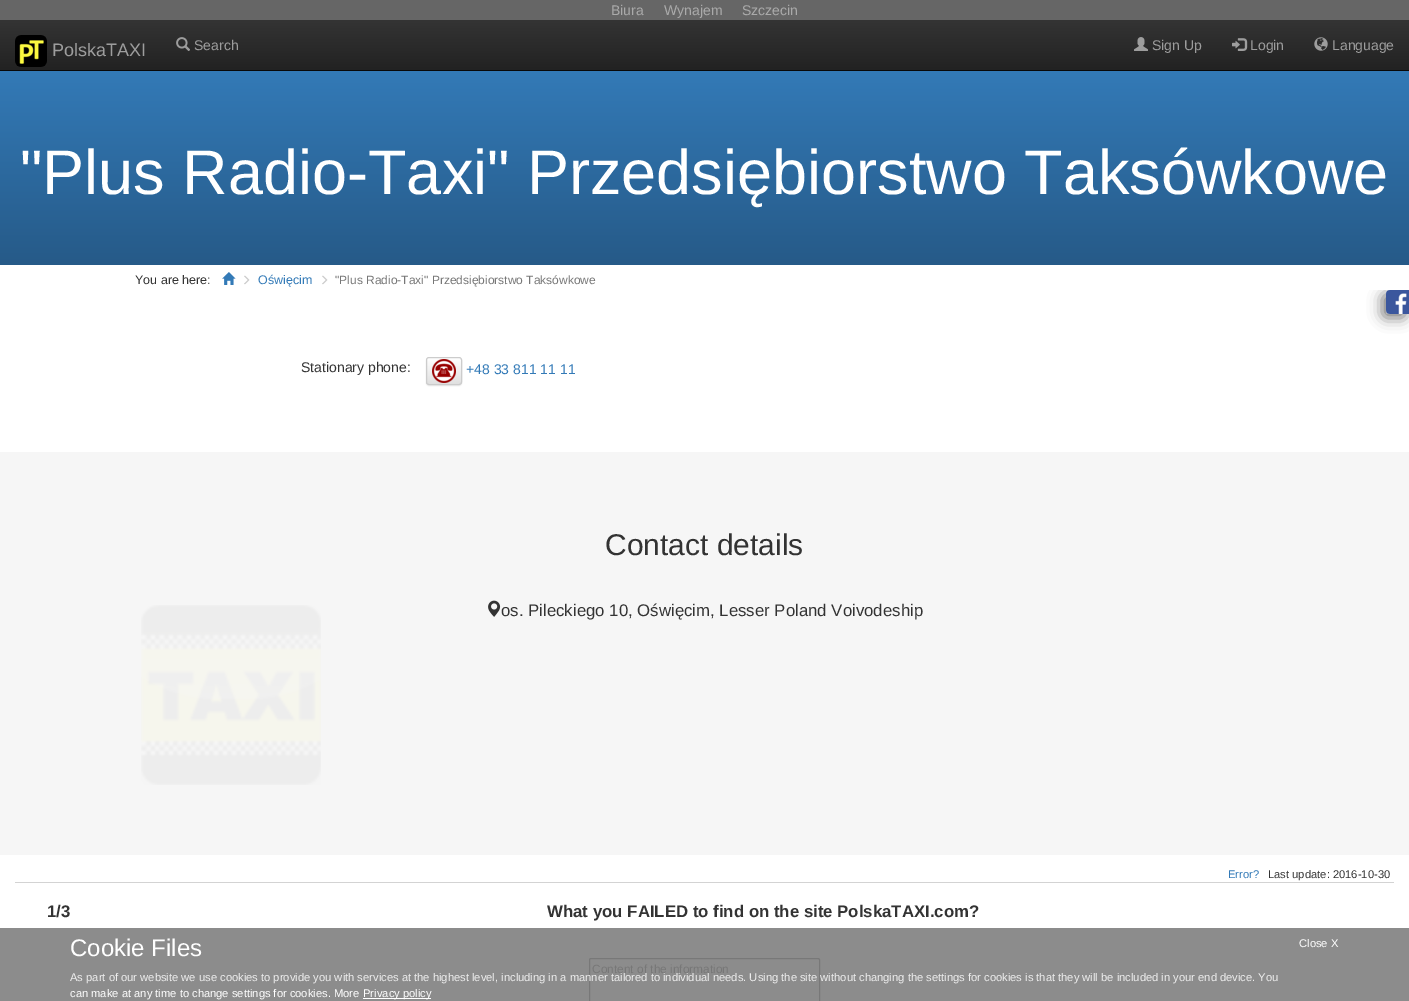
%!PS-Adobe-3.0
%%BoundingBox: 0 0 1409 1001
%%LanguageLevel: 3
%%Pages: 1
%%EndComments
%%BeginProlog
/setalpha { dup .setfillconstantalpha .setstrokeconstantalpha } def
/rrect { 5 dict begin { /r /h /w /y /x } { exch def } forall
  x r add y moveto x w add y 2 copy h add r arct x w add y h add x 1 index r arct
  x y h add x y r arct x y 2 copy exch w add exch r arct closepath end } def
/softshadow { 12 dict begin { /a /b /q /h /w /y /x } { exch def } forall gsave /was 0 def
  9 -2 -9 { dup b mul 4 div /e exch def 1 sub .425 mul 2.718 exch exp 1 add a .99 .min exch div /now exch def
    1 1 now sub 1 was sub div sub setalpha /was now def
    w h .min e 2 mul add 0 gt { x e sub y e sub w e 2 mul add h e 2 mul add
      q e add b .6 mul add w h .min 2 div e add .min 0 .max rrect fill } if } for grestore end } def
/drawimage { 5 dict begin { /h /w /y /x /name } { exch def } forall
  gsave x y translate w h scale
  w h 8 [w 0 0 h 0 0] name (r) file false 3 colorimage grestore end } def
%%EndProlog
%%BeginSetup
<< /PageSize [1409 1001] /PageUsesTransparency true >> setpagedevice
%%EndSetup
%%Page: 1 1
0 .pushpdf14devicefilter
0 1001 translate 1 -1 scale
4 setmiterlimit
1 setgray
0 0 1409 1001 rectfill
0.549 setgray
0 928 1409 73 rectfill
gsave newpath 0 20 moveto 1409 20 lineto 1409 70 lineto 0 70 lineto closepath clip newpath
<< /ShadingType 2 /ColorSpace /DeviceRGB /Coords [705 0 705 70] /Extend [true true] /Function << /FunctionType 2 /Domain [0 1] /C0 [0.235 0.235 0.235] /C1 [0.133 0.133 0.133] /N 1 >> >> shfill grestore
0.031 setgray
0 70 1409 1 rectfill
0.4 setgray
0 0 1409 20 rectfill
(images/1.raw) 15 35 32 32 drawimage
(images/2.raw) 176 37 14 14 drawimage
(images/3.raw) 1134 37 14 14 drawimage
(images/4.raw) 1232 38 16 13 drawimage
(images/5.raw) 1314 37 14 14 drawimage
gsave newpath 0 71 moveto 1409 71 lineto 1409 265 lineto 0 265 lineto closepath clip newpath
<< /ShadingType 2 /ColorSpace /DeviceRGB /Coords [705 70 705 265] /Extend [true true] /Function << /FunctionType 2 /Domain [0 1] /C0 [0.2 0.478 0.718] /C1 [0.149 0.353 0.533] /N 1 >> >> shfill grestore
(images/6.raw) 222 272 14 13 drawimage
(images/7.raw) 244 275 6 10 drawimage
(images/7.raw) 322 275 6 10 drawimage
gsave
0 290 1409 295 rectclip
0.467 setgray
1382 294 24 24 4 7 1 softshadow
grestore
(images/8.raw) 1386 290 23 24 drawimage
0 setgray
426 358 36 28 3 0.5 0.07 softshadow
gsave
426 357 36 28 3 rrect clip newpath
gsave newpath 426 358 moveto 462 358 lineto 462 384 lineto 426 384 lineto closepath clip newpath
<< /ShadingType 2 /ColorSpace /DeviceRGB /Coords [444 358 444 384] /Extend [true true] /Function << /FunctionType 2 /Domain [0 1] /C0 [1 1 1] /C1 [0.878 0.878 0.878] /N 1 >> >> shfill grestore
grestore
0.8 setgray
426.5 357.5 35 27 2.5 rrect stroke
(images/9.raw) 432 359 24 24 drawimage
0.965 setgray
0 452 1409 403 rectfill
(images/10.raw) 141 605 180 180 drawimage
(images/11.raw) 488 600 13 17 drawimage
0.827 setgray
15 882 1379 1 rectfill
0.471 setgray
589.5 958.5 230 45 1.5 rrect stroke
1 setgray
363 998 68 1 rectfill
/LiberationSans-Regular [14 0 0 -14 0 0] selectfont
0.667 setgray
611 15 moveto (Biura) show
664 15 moveto (Wynajem) show
742 15 moveto (Szczecin) show
/LiberationSans-Regular [18 0 0 -18 0 0] selectfont
0.616 setgray
52 56 moveto (PolskaTAXI) show
/LiberationSans-Regular [14 0 0 -14 0 0] selectfont
194 50 moveto (Search) show
1152 50 moveto (Sign Up) show
1250 50 moveto (Login) show
1332 50 moveto (Language) show
/LiberationSans-Regular [63 0 0 -63 0 0] selectfont
1 setgray
20 194 moveto ("Plus Radio-Taxi" Przedsiębiorstwo Taksówkowe) show
/LiberationSans-Regular [12.5 0 0 -12.5 0 0] selectfont
0.2 setgray
135 284 moveto (You are here:) show
0.2 0.478 0.718 setrgbcolor
258 284 moveto (Oświęcim) show
/LiberationSans-Regular [12 0 0 -12 0 0] selectfont
0.467 setgray
335 284 moveto ("Plus Radio-Taxi" Przedsiębiorstwo Taksówkowe) show
/LiberationSans-Regular [14 0 0 -14 0 0] selectfont
0.2 setgray
301 372 moveto (Stationary phone:) show
0.2 0.478 0.718 setrgbcolor
466 374 moveto (+48 33 811 11 11) show
/LiberationSans-Regular [30 0 0 -30 0 0] selectfont
0.2 setgray
605 555 moveto (Contact details) show
/LiberationSans-Regular [16.8 0 0 -16.8 0 0] selectfont
501 616 moveto (os. Pileckiego 10, Oświęcim, Lesser Poland Voivodeship) show
/LiberationSans-Regular [11.2 0 0 -11.2 0 0] selectfont
0.2 0.478 0.718 setrgbcolor
1228 878 moveto (Error?) show
0.2 setgray
1268 878 moveto (Last update: 2016-10-30) show
/LiberationSans-Bold [16.8 0 0 -16.8 0 0] selectfont
47 917 moveto (1/3) show
547 917 moveto (What you FAILED to find on the site PolskaTAXI.com?) show
/LiberationSans-Regular [11.9 0 0 -11.9 0 0] selectfont
0.467 setgray
592 973 moveto (Content of the information) show
/LiberationSans-Regular [24 0 0 -24 0 0] selectfont
1 setgray
70 956 moveto (Cookie Files) show
/LiberationSans-Regular [11.2 0 0 -11.2 0 0] selectfont
0.933 setgray
70 981 moveto (As part of our website we use cookies to provide you with services at the highest level, including in a manner tailored to individual needs. Using the site without changing the settings for cookies is that they will be included in your end device. You) show
1 setgray
70 997 moveto (can make at any time to change settings for cookies. More) show
363 997 moveto (Privacy policy) show
1299 947 moveto (Close X) show
.poppdf14devicefilter showpage
%%EOF
